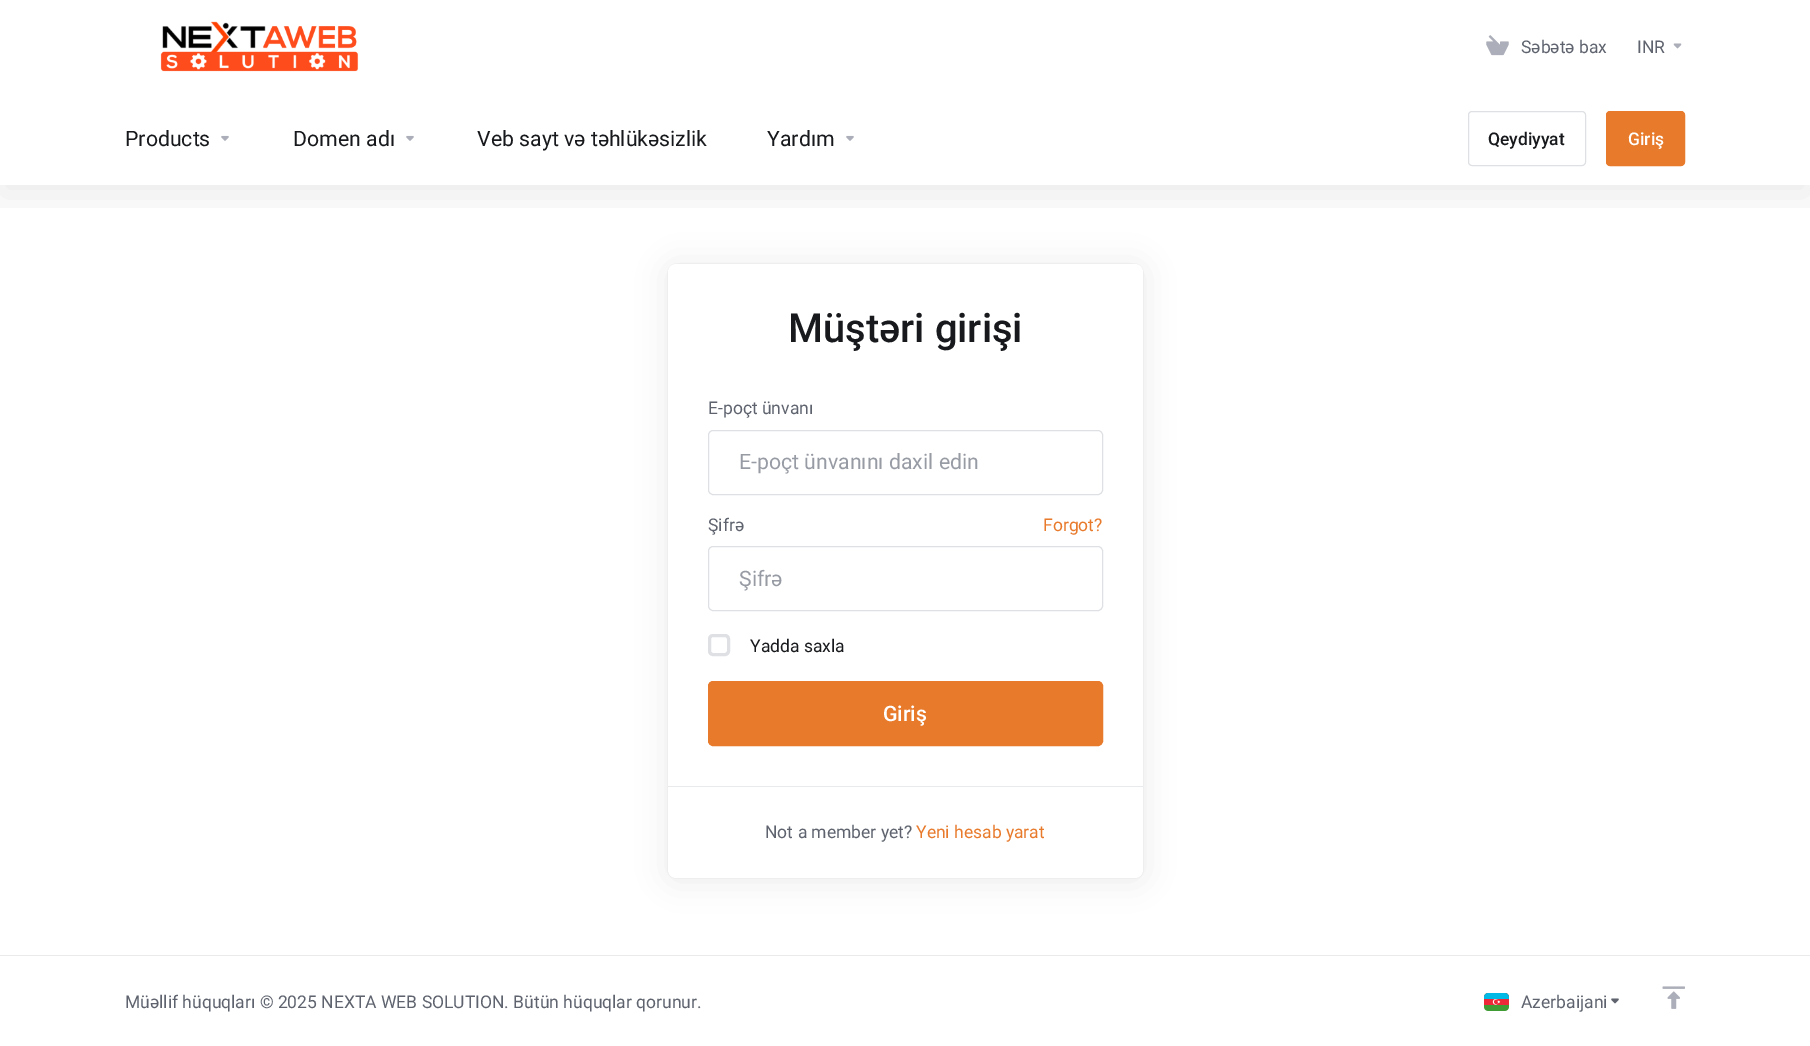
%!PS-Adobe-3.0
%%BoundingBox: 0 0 1810 1046
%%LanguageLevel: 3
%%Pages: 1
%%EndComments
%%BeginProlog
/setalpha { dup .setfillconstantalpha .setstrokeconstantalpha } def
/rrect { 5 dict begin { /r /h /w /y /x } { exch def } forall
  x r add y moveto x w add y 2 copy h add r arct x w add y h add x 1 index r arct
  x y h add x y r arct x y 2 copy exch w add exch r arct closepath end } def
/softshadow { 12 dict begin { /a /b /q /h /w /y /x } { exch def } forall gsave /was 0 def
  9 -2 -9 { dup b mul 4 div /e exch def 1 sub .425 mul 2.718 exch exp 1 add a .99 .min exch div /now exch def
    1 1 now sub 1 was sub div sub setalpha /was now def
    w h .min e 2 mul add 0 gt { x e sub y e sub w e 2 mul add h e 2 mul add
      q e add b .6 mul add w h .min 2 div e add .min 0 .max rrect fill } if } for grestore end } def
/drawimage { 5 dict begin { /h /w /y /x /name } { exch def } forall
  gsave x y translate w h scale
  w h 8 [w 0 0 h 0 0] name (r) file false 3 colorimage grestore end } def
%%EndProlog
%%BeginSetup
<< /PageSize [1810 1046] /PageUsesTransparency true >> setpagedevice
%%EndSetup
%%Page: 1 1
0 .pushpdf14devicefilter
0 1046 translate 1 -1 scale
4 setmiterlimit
1 setgray
0 0 1810 1046 rectfill
gsave
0 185 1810 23 rectclip
0 setgray
0 10 1810 185 0 20 0.08 softshadow
grestore
(images/1.raw) 160 21 199 51 drawimage
(images/2.raw) 1486 35 23 21 drawimage
(images/3.raw) 1673 43 9 6 drawimage
(images/4.raw) 221 135 8 6 drawimage
(images/4.raw) 406 135 8 6 drawimage
(images/4.raw) 846 135 8 6 drawimage
0.871 0.878 0.89 setrgbcolor
1468.5 111.5 117 54 3.5 rrect stroke
0.91 0.478 0.173 setrgbcolor
1606.5 111.5 78 54 3.5 rrect gsave fill grestore
stroke
0 setgray
668 266 475 614 8 15 0.08 softshadow
668 264 475 614 8 0.5 0.1 softshadow
1 setgray
668 264 475 614 8 rrect fill
0.871 0.878 0.89 setrgbcolor
708.5 430.5 394 64 4.5 rrect stroke
708.5 546.5 394 64 4.5 rrect stroke
3 setlinewidth
709.5 635.5 19 19 3.5 rrect stroke
0.91 0.478 0.173 setrgbcolor
708.5 681.5 394 64 4.5 rrect gsave fill grestore
1 setlinewidth
stroke
0.914 0.918 0.925 setrgbcolor
668 786 475 1 rectfill
0 955 1810 1 rectfill
(images/5.raw) 1484 993 25 18 drawimage
(images/6.raw) 1611 998 8 6 drawimage
(images/7.raw) 1662 986 23 23 drawimage
/Roboto-Regular [17.5 0 0 -17.5 0 0] selectfont
0.369 0.388 0.431 setrgbcolor
1521 53 moveto (Səbətə bax) show
1637 53 moveto (INR) show
/Roboto-Regular [21.25 0 0 -21.25 0 0] selectfont
0.09 0.098 0.11 setrgbcolor
125 146 moveto (Products) show
293 146 moveto (Domen adı) show
477 146 moveto (Veb sayt və təhlükəsizlik) show
767 146 moveto (Yardım) show
/Roboto-Medium [17.5 0 0 -17.5 0 0] selectfont
1488 145 moveto (Qeydiyyat) show
1 setgray
1628 145 moveto (Giriş) show
/Roboto-Medium [40 0 0 -40 0 0] selectfont
0.09 0.098 0.11 setrgbcolor
788 342 moveto (Müştəri girişi) show
/Roboto-Regular [17.5 0 0 -17.5 0 0] selectfont
0.369 0.388 0.431 setrgbcolor
708 414 moveto (E-poçt ünvanı) show
/Roboto-Regular [21.25 0 0 -21.25 0 0] selectfont
0.592 0.608 0.643 setrgbcolor
739 469 moveto (E-poçt ünvanını daxil edin) show
/Roboto-Regular [17.5 0 0 -17.5 0 0] selectfont
0.369 0.388 0.431 setrgbcolor
708 531 moveto (Şifrə) show
0.91 0.478 0.173 setrgbcolor
1043 531 moveto (Forgot?) show
/Roboto-Regular [21.25 0 0 -21.25 0 0] selectfont
0.592 0.608 0.643 setrgbcolor
739 586 moveto (Şifrə) show
/Roboto-Regular [17.5 0 0 -17.5 0 0] selectfont
0.09 0.098 0.11 setrgbcolor
750 652 moveto (Yadda saxla) show
/Roboto-Medium [21.25 0 0 -21.25 0 0] selectfont
1 setgray
883 721 moveto (Giriş) show
/Roboto-Regular [17.5 0 0 -17.5 0 0] selectfont
0.369 0.388 0.431 setrgbcolor
765 838 moveto (Not a member yet?) show
0.91 0.478 0.173 setrgbcolor
916 838 moveto (Yeni hesab yarat) show
0.369 0.388 0.431 setrgbcolor
125 1008 moveto (Müəllif hüquqları © 2025 NEXTA WEB SOLUTION. Bütün hüquqlar qorunur.) show
1521 1008 moveto (Azerbaijani) show
.poppdf14devicefilter showpage
%%EOF
